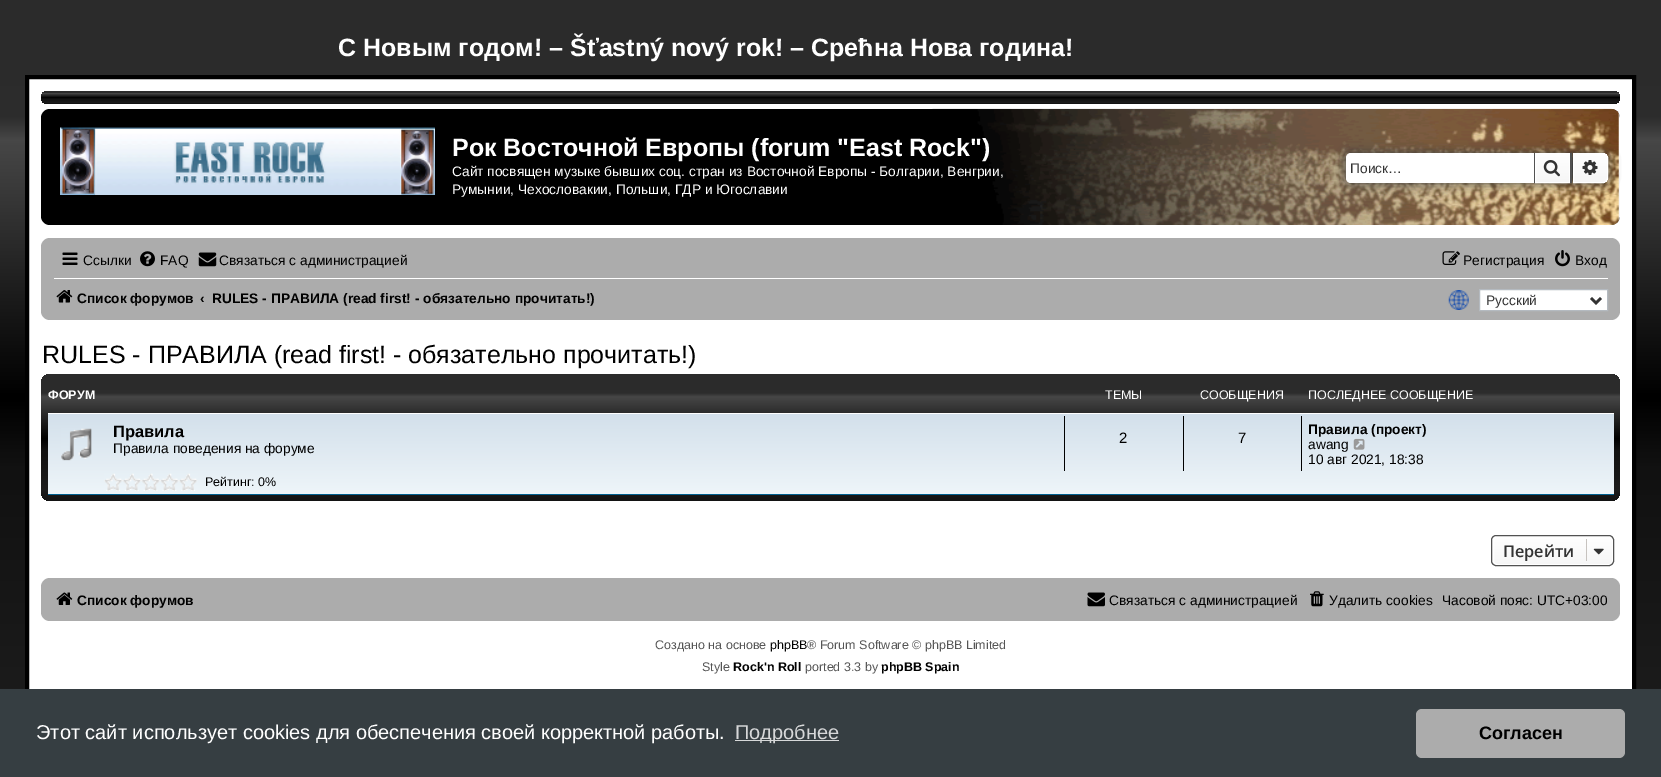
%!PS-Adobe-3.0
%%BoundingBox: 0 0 1661 777
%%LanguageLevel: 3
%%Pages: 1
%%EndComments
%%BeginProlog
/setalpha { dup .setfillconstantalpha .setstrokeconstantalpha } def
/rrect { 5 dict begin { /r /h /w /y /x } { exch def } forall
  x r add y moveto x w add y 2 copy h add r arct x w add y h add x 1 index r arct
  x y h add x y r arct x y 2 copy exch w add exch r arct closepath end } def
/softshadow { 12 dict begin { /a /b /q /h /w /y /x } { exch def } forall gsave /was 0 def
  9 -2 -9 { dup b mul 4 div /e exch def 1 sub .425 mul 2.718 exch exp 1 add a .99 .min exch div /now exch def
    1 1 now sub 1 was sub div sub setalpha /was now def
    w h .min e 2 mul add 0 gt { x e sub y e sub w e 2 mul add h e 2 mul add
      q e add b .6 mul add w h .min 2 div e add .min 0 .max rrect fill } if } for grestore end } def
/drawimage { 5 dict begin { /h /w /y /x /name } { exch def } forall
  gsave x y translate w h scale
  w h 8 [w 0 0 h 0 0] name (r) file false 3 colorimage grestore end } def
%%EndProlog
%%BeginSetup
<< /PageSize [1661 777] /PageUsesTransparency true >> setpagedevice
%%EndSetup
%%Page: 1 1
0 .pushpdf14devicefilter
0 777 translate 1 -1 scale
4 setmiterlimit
1 setgray
0 0 1661 777 rectfill
gsave newpath 0 0 moveto 1661 0 lineto 1661 689 lineto 0 689 lineto closepath clip newpath
<< /ShadingType 2 /ColorSpace /DeviceRGB /Coords [831 0 831 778] /Extend [true true] /Function << /FunctionType 3 /Domain [0 1] /Functions [<< /FunctionType 2 /Domain [0 1] /C0 [0.169 0.169 0.169] /C1 [0.173 0.173 0.173] /N 1 >> << /FunctionType 2 /Domain [0 1] /C0 [0.173 0.173 0.173] /C1 [0.278 0.278 0.278] /N 1 >> << /FunctionType 2 /Domain [0 1] /C0 [0.278 0.278 0.278] /C1 [0 0 0] /N 1 >> << /FunctionType 2 /Domain [0 1] /C0 [0 0 0] /C1 [0.067 0.067 0.067] /N 1 >> << /FunctionType 2 /Domain [0 1] /C0 [0.067 0.067 0.067] /C1 [0.11 0.11 0.11] /N 1 >> << /FunctionType 2 /Domain [0 1] /C0 [0.11 0.11 0.11] /C1 [0.075 0.075 0.075] /N 1 >>] /Bounds [0.15 0.18 0.51 0.6 0.91] /Encode [0 1 0 1 0 1 0 1 0 1 0 1] >> >> shfill grestore
29 79 1603 610 rectfill
0 setgray
4 setlinewidth
27 77 1607 674 rectstroke
gsave 41 91 1579 13 6.5 rrect clip newpath
<< /ShadingType 2 /ColorSpace /DeviceRGB /Coords [831 91 831 104] /Extend [true true] /Function << /FunctionType 3 /Domain [0 1] /Functions [<< /FunctionType 2 /Domain [0 1] /C0 [0.169 0.169 0.169] /C1 [0.173 0.173 0.173] /N 1 >> << /FunctionType 2 /Domain [0 1] /C0 [0.173 0.173 0.173] /C1 [0.278 0.278 0.278] /N 1 >> << /FunctionType 2 /Domain [0 1] /C0 [0.278 0.278 0.278] /C1 [0 0 0] /N 1 >> << /FunctionType 2 /Domain [0 1] /C0 [0 0 0] /C1 [0.067 0.067 0.067] /N 1 >> << /FunctionType 2 /Domain [0 1] /C0 [0.067 0.067 0.067] /C1 [0.11 0.11 0.11] /N 1 >> << /FunctionType 2 /Domain [0 1] /C0 [0.11 0.11 0.11] /C1 [0.075 0.075 0.075] /N 1 >>] /Bounds [0.15 0.18 0.51 0.6 0.91] /Encode [0 1 0 1 0 1 0 1 0 1 0 1] >> >> shfill grestore
41 109 1579 116 9 rrect fill
(images/1.raw) 932 108 688 117 drawimage
(images/2.raw) 60 127 375 68 drawimage
0.231 0.239 0.243 setrgbcolor
1346 153 262 30 5 6 1 softshadow
1 setgray
newpath 1351 153 moveto 1534 153 lineto 1534 183 lineto 1351 183 lineto 1348 183 1346 181 1346 178 curveto 1346 158 lineto 1346 155 1348 153 1351 153 curveto closepath fill
gsave newpath 1536 154 moveto 1569 154 lineto 1569 182 lineto 1536 182 lineto closepath clip newpath
<< /ShadingType 2 /ColorSpace /DeviceRGB /Coords [1553 153 1553 183] /Extend [true true] /Function << /FunctionType 2 /Domain [0 1] /C0 [1 1 1] /C1 [0.965 0.965 0.965] /N 1 >> >> shfill grestore
1 setlinewidth
1535.5 153.5 34 29 rectstroke
0.322 setgray
1570 153 2 30 rectfill
1534 153 1 30 rectfill
(images/3.raw) 1543 160 17 17 drawimage
gsave newpath 1573.5 153.5 moveto 1603 153.5 lineto 1605.5 153.5 1607.5 155.5 1607.5 158 curveto 1607.5 178 lineto 1607.5 180.5 1605.5 182.5 1603 182.5 curveto 1573.5 182.5 lineto closepath clip newpath
<< /ShadingType 2 /ColorSpace /DeviceRGB /Coords [1590 153 1590 183] /Extend [true true] /Function << /FunctionType 2 /Domain [0 1] /C0 [1 1 1] /C1 [0.965 0.965 0.965] /N 1 >> >> shfill grestore
1 setgray
newpath 1573.5 153.5 moveto 1603 153.5 lineto 1605.5 153.5 1607.5 155.5 1607.5 158 curveto 1607.5 178 lineto 1607.5 180.5 1605.5 182.5 1603 182.5 curveto 1573.5 182.5 lineto closepath stroke
(images/4.raw) 1582 160 16 15 drawimage
0.675 setgray
41 238 1579 82 9 rrect fill
(images/5.raw) 62 252 16 13 drawimage
(images/6.raw) 140 251 15 16 drawimage
(images/7.raw) 198 252 19 15 drawimage
(images/8.raw) 1442 251 18 14 drawimage
(images/9.raw) 1555 250 15 17 drawimage
1 setgray
54 278 1554 1 rectfill
(images/10.raw) 56 290 17 13 drawimage
(images/11.raw) 1448 290 21 20 drawimage
newpath 1479.5 289.5 moveto 1607.5 289.5 lineto 1607.5 310.5 lineto 1479.5 310.5 lineto closepath gsave fill grestore
0.706 0.729 0.753 setrgbcolor
stroke
0.2 setgray
2.5 setlinewidth
newpath 1591 298 moveto 1596 303 lineto 1601 298 lineto stroke
gsave 41 374 1579 127 9 rrect clip newpath
<< /ShadingType 2 /ColorSpace /DeviceRGB /Coords [831 374 831 501] /Extend [true true] /Function << /FunctionType 3 /Domain [0 1] /Functions [<< /FunctionType 2 /Domain [0 1] /C0 [0.169 0.169 0.169] /C1 [0.173 0.173 0.173] /N 1 >> << /FunctionType 2 /Domain [0 1] /C0 [0.173 0.173 0.173] /C1 [0.278 0.278 0.278] /N 1 >> << /FunctionType 2 /Domain [0 1] /C0 [0.278 0.278 0.278] /C1 [0 0 0] /N 1 >> << /FunctionType 2 /Domain [0 1] /C0 [0 0 0] /C1 [0.067 0.067 0.067] /N 1 >> << /FunctionType 2 /Domain [0 1] /C0 [0.067 0.067 0.067] /C1 [0.11 0.11 0.11] /N 1 >> << /FunctionType 2 /Domain [0 1] /C0 [0.11 0.11 0.11] /C1 [0.075 0.075 0.075] /N 1 >>] /Bounds [0.15 0.18 0.51 0.6 0.91] /Encode [0 1 0 1 0 1 0 1 0 1 0 1] >> >> shfill grestore
gsave newpath 48 414 moveto 1614 414 lineto 1614 494 lineto 48 494 lineto closepath clip newpath
<< /ShadingType 2 /ColorSpace /DeviceRGB /Coords [831 412 831 495] /Extend [true true] /Function << /FunctionType 2 /Domain [0 1] /C0 [0.824 0.878 0.922] /C1 [0.933 0.961 0.976] /N 1 >> >> shfill grestore
1 setgray
48 413 1566 1 rectfill
0 0.376 0.561 setrgbcolor
48 494 1566 1 rectfill
(images/12.raw) 61 428 31 33 drawimage
0 setgray
1064 416 1 55 rectfill
1183 416 1 55 rectfill
1301 416 1 55 rectfill
(images/13.raw) 1353 438 12 12 drawimage
(images/14.raw) 104 473 94 18 drawimage
gsave
1491 535 123 31 5 rrect clip newpath
gsave newpath 1491 536 moveto 1614 536 lineto 1614 565 lineto 1491 565 lineto closepath clip newpath
<< /ShadingType 2 /ColorSpace /DeviceRGB /Coords [1553 536 1553 565] /Extend [true true] /Function << /FunctionType 2 /Domain [0 1] /C0 [1 1 1] /C1 [0.965 0.965 0.965] /N 1 >> >> shfill grestore
grestore
1 setgray
1 setlinewidth
1493.5 536.5 119 28 3.5 rrect stroke
0.322 setgray
1491.5 535.5 122 30 4.5 rrect stroke
0.78 0.765 0.749 setrgbcolor
1586 539 1 22 rectfill
(images/15.raw) 1593 548 11 7 drawimage
0.675 setgray
41 578 1579 43 9 rrect fill
(images/16.raw) 56 592 17 13 drawimage
(images/17.raw) 1087 592 18 15 drawimage
(images/18.raw) 1310 591 14 16 drawimage
0.212 0.243 0.259 setrgbcolor
0 689 1661 88 rectfill
0.843 0.847 0.851 setrgbcolor
735 740 104 1 rectfill
0.675 setgray
1416 709 209 49 6 rrect fill
/LiberationSans-Bold [25 0 0 -25 0 0] selectfont
1 setgray
338 56 moveto (С Новым годом! – Šťastný nový rok! – Срећна Нова година!) show
452 156 moveto (Рок Восточной Европы \(forum "East Rock"\)) show
/LiberationSans-Regular [13.75 0 0 -13.75 0 0] selectfont
452 176 moveto (Сайт посвящен музыке бывших соц. стран из Восточной Европы - Болгарии, Венгрии,) show
452 194 moveto (Румынии, Чехословакии, Польши, ГДР и Югославии) show
0.2 setgray
1350 173 moveto (Поиск…) show
0 setgray
83 265 moveto (Ссылки) show
160 265 moveto (FAQ) show
219 265 moveto (Связаться с администрацией) show
1463 265 moveto (Регистрация) show
1575 265 moveto (Вход) show
/LiberationSans-Bold [13.75 0 0 -13.75 0 0] selectfont
77 303 moveto (Список форумов) show
200 303 moveto (‹) show
212 303 moveto (RULES - ПРАВИЛА \(read first! - обязательно прочитать!\)) show
/LiberationSans-Regular [13.75 0 0 -13.75 0 0] selectfont
0.2 setgray
1486 305 moveto (Русский) show
/LiberationSans-Regular [25 0 0 -25 0 0] selectfont
0 setgray
42 363 moveto (RULES - ПРАВИЛА \(read first! - обязательно прочитать!\)) show
/LiberationSans-Bold [12.5 0 0 -12.5 0 0] selectfont
1 setgray
48 399 moveto (ФОРУМ) show
/LiberationSans-Regular [12.5 0 0 -12.5 0 0] selectfont
1105 399 moveto (ТЕМЫ) show
1200 399 moveto (СООБЩЕНИЯ) show
1308 399 moveto (ПОСЛЕДНЕЕ СООБЩЕНИЕ) show
/LiberationSans-Bold [16.5 0 0 -16.5 0 0] selectfont
0 setgray
113 437 moveto (Правила) show
/LiberationSans-Regular [13.75 0 0 -13.75 0 0] selectfont
113 453 moveto (Правила поведения на форуме) show
/LiberationSans-Regular [15 0 0 -15 0 0] selectfont
1119 443 moveto (2) show
1238 443 moveto (7) show
/LiberationSans-Bold [13.75 0 0 -13.75 0 0] selectfont
1308 434 moveto (Правила \(проект\)) show
/LiberationSans-Regular [13.75 0 0 -13.75 0 0] selectfont
1308 449 moveto (awang) show
1308 464 moveto (10 авг 2021, 18:38) show
/LiberationSans-Regular [12.5 0 0 -12.5 0 0] selectfont
205 486 moveto (Рейтинг: 0%) show
/OpenSans-SemiBold [16.25 0 0 -16.25 0 0] selectfont
0.2 setgray
1503 557 moveto (Перейти) show
/LiberationSans-Bold [13.75 0 0 -13.75 0 0] selectfont
0 setgray
77 605 moveto (Список форумов) show
/LiberationSans-Regular [13.75 0 0 -13.75 0 0] selectfont
1109 605 moveto (Связаться с администрацией) show
1329 605 moveto (Удалить cookies) show
1442 605 moveto (Часовой пояс: UTC+03:00) show
/LiberationSans-Regular [12.5 0 0 -12.5 0 0] selectfont
0.333 setgray
655 649 moveto (Создано на основе) show
0 setgray
770 649 moveto (phpBB) show
0.333 setgray
807 649 moveto (® Forum Software © phpBB Limited) show
702 671 moveto (Style) show
/LiberationSans-Bold [12.5 0 0 -12.5 0 0] selectfont
0 setgray
733 671 moveto (Rock'n Roll) show
/LiberationSans-Regular [12.5 0 0 -12.5 0 0] selectfont
0.333 setgray
805 671 moveto (ported 3.3 by) show
/LiberationSans-Bold [12.5 0 0 -12.5 0 0] selectfont
0 setgray
881 671 moveto (phpBB Spain) show
/LiberationSans-Regular [20 0 0 -20 0 0] selectfont
1 setgray
36 739 moveto (Этот сайт использует cookies для обеспечения своей корректной работы.) show
0.843 0.847 0.851 setrgbcolor
735 739 moveto (Подробнее) show
/LiberationSans-Bold [18 0 0 -18 0 0] selectfont
0 setgray
1479 739 moveto (Согласен) show
.poppdf14devicefilter showpage
%%EOF
